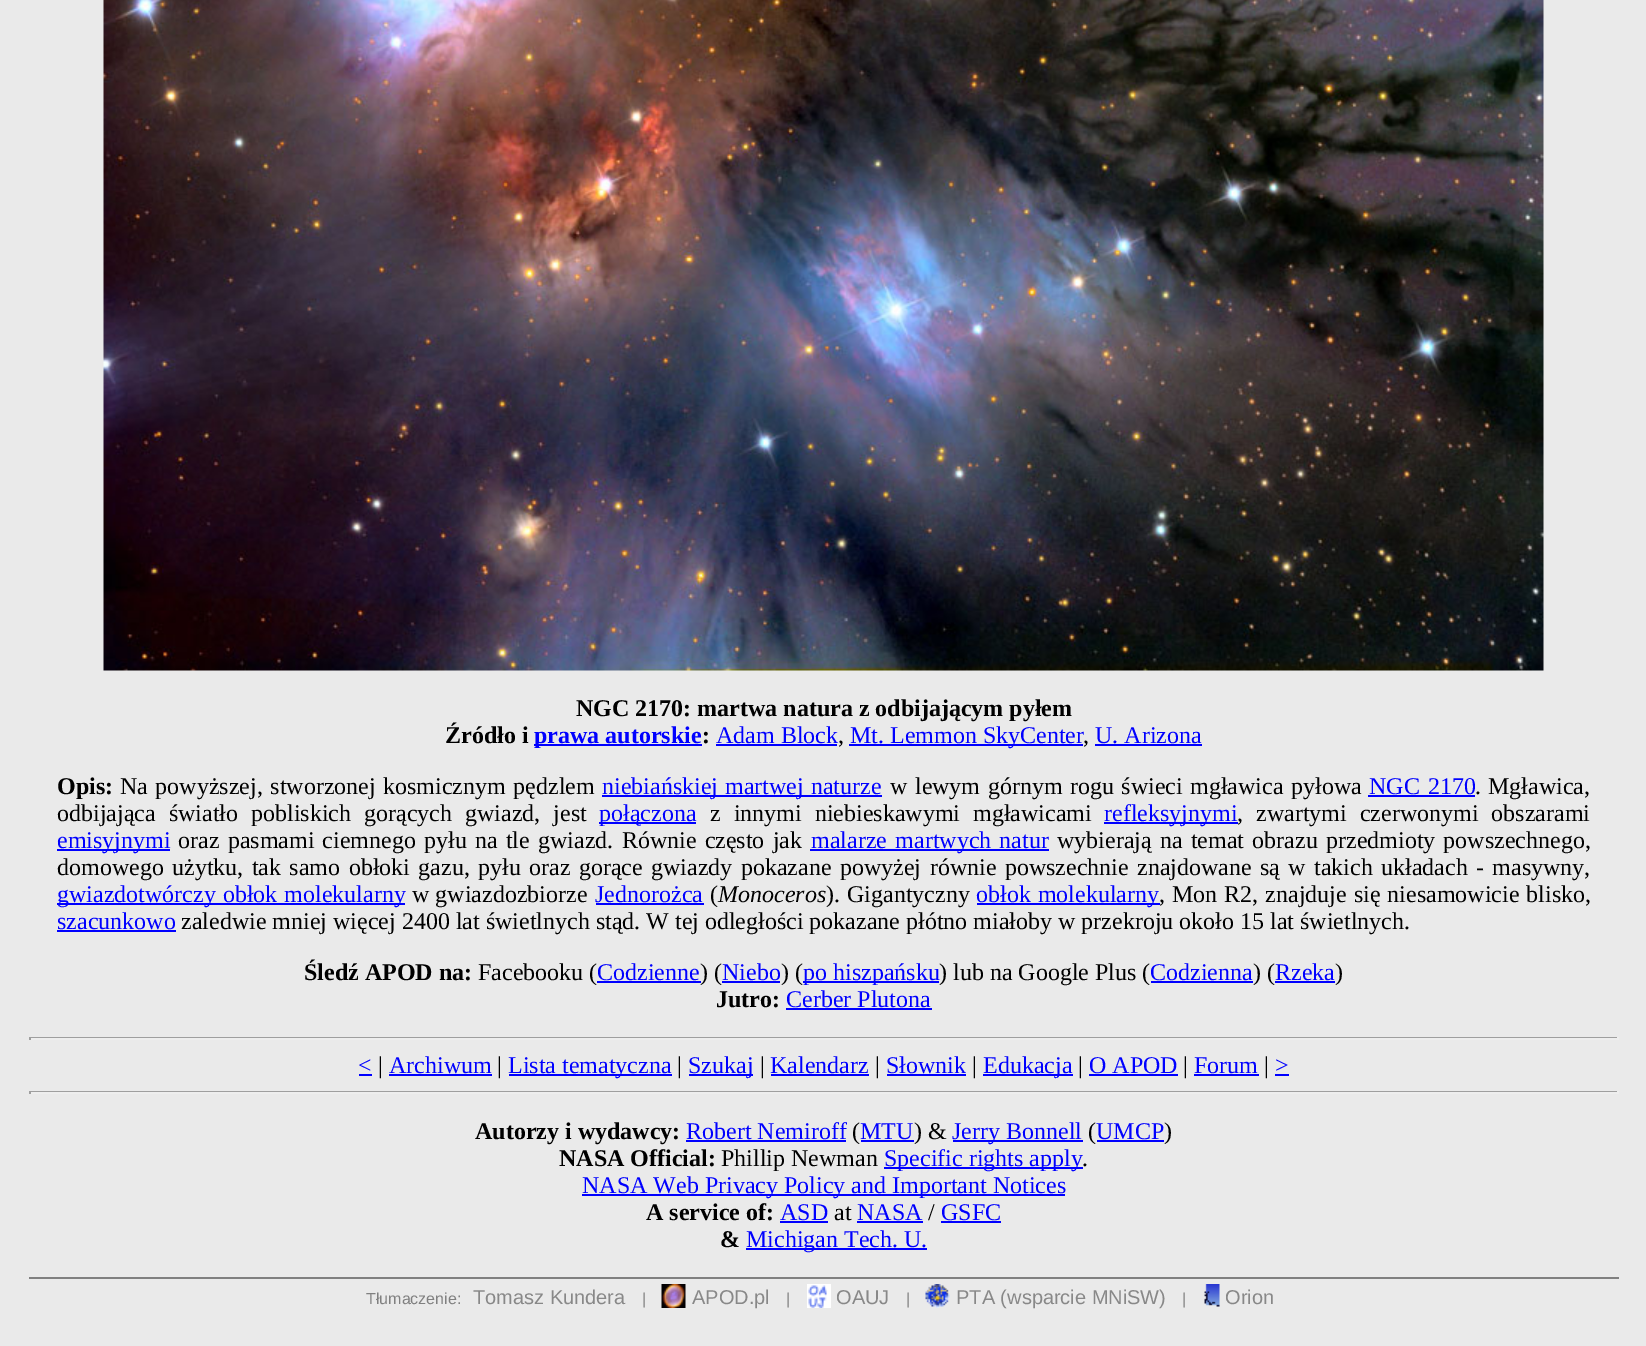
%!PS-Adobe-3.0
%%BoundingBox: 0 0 1646 1346
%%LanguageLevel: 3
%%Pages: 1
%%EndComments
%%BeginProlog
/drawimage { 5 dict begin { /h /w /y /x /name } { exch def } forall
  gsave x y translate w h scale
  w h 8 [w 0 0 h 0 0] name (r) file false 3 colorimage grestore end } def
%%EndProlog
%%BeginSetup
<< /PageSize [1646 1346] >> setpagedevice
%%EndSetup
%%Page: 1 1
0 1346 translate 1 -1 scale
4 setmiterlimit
0.918 setgray
0 0 1646 1346 rectfill
(images/1.raw) 103 0 1441 671 drawimage
0 0 1 setrgbcolor
534 744 168 2 rectfill
716 744 121 2 rectfill
849 744 234 2 rectfill
1095 744 107 2 rectfill
602 795 280 2 rectfill
1368 795 107 2 rectfill
599 822 97 2 rectfill
1104 822 134 2 rectfill
57 849 113 2 rectfill
810 849 239 2 rectfill
57 903 348 2 rectfill
596 903 108 2 rectfill
977 903 183 2 rectfill
57 930 119 2 rectfill
597 981 104 2 rectfill
722 981 58 2 rectfill
803 981 136 2 rectfill
1151 981 102 2 rectfill
1275 981 60 2 rectfill
786 1008 146 2 rectfill
0.624 setgray
29 1037 1590 1 rectfill
0.933 setgray
1617 1037 2 3 rectfill
29 1038 1590 2 rectfill
0.624 setgray
29 1037 2 3 rectfill
0 0 1 setrgbcolor
359 1074 13 2 rectfill
389 1074 103 2 rectfill
509 1074 163 2 rectfill
689 1074 64 2 rectfill
771 1074 98 2 rectfill
887 1074 79 2 rectfill
983 1074 90 2 rectfill
1089 1074 89 2 rectfill
1194 1074 65 2 rectfill
1275 1074 14 2 rectfill
0.624 setgray
29 1091 1590 1 rectfill
0.933 setgray
1617 1091 2 3 rectfill
29 1092 1590 2 rectfill
0.624 setgray
29 1091 2 3 rectfill
0 0 1 setrgbcolor
686 1140 160 2 rectfill
861 1140 53 2 rectfill
953 1140 130 2 rectfill
1097 1140 67 2 rectfill
884 1167 199 2 rectfill
582 1194 483 2 rectfill
780 1221 48 2 rectfill
857 1221 66 2 rectfill
941 1221 60 2 rectfill
746 1248 181 2 rectfill
0.502 setgray
29 1277 1590 2 rectfill
(images/2.raw) 661 1284 25 24 drawimage
(images/3.raw) 807 1284 24 24 drawimage
(images/4.raw) 925 1284 25 24 drawimage
(images/5.raw) 1204 1284 16 23 drawimage
/LiberationSerif-Bold [24 0 0 -24 0 0] selectfont
0 setgray
576 716 moveto (NGC 2170: martwa natura z odbijającym pyłem) show
445 743 moveto (Źródło i) show
0 0 1 setrgbcolor
534 743 moveto (prawa autorskie) show
0 setgray
702 743 moveto (:) show
/LiberationSerif-Regular [24 0 0 -24 0 0] selectfont
0 0 1 setrgbcolor
716 743 moveto (Adam Block) show
0 setgray
838 743 moveto (,) show
0 0 1 setrgbcolor
850 743 moveto (Mt. Lemmon SkyCenter) show
0 setgray
1083 743 moveto (,) show
0 0 1 setrgbcolor
1095 743 moveto (U. Arizona) show
/LiberationSerif-Bold [24 0 0 -24 0 0] selectfont
0 setgray
57 794 moveto (Opis:) show
/LiberationSerif-Regular [24 0 0 -24 0 0] selectfont
120 794 moveto 1.5 0 32 (Na powyższej, stworzonej kosmicznym pędzlem) widthshow
0 0 1 setrgbcolor
602 794 moveto 1 0 32 (niebiańskiej martwej naturze) widthshow
0 setgray
890 794 moveto 1.5 0 32 (w lewym górnym rogu świeci mgławica pyłowa) widthshow
0 0 1 setrgbcolor
1369 794 moveto 2 0 32 (NGC 2170) widthshow
0 setgray
1475 794 moveto 1 0 32 (. Mgławica,) widthshow
57 821 moveto 7 0 32 (odbijająca światło pobliskich gorących gwiazd, jest) widthshow
0 0 1 setrgbcolor
599 821 moveto (połączona) show
0 setgray
710 821 moveto 7 0 32 (z innymi niebieskawymi mgławicami) widthshow
0 0 1 setrgbcolor
1104 821 moveto (refleksyjnymi) show
0 setgray
1237 821 moveto 7 0 32 (, zwartymi czerwonymi obszarami) widthshow
0 0 1 setrgbcolor
57 848 moveto (emisyjnymi) show
0 setgray
178 848 moveto 2.25 0 32 (oraz pasmami ciemnego pyłu na tle gwiazd. Równie często jak) widthshow
0 0 1 setrgbcolor
811 848 moveto 2.25 0 32 (malarze martwych natur) widthshow
0 setgray
1057 848 moveto 2.25 0 32 (wybierają na temat obrazu przedmioty powszechnego,) widthshow
57 875 moveto 2.4 0 32 (domowego użytku, tak samo obłoki gazu, pyłu oraz gorące gwiazdy pokazane powyżej równie powszechnie znajdowane są w takich układach - masywny,) widthshow
0 0 1 setrgbcolor
57 902 moveto 1 0 32 (gwiazdotwórczy obłok molekularny) widthshow
0 setgray
412 902 moveto (w gwiazdozbiorze) show
0 0 1 setrgbcolor
595 902 moveto (Jednorożca) show
0 setgray
710 902 moveto (\() show
/LiberationSerif-Italic [24 0 0 -24 0 0] selectfont
718 902 moveto (Monoceros) show
/LiberationSerif-Regular [24 0 0 -24 0 0] selectfont
826 902 moveto 1 0 32 (\). Gigantyczny) widthshow
0 0 1 setrgbcolor
976 902 moveto 1 0 32 (obłok molekularny) widthshow
0 setgray
1159 902 moveto 1 0 32 (, Mon R2, znajduje się niesamowicie blisko,) widthshow
0 0 1 setrgbcolor
57 929 moveto (szacunkowo) show
0 setgray
181 929 moveto (zaledwie mniej więcej 2400 lat świetlnych stąd. W tej odległości pokazane płótno miałoby w przekroju około 15 lat świetlnych.) show
/LiberationSerif-Bold [24 0 0 -24 0 0] selectfont
304 980 moveto (Śledź APOD na:) show
/LiberationSerif-Regular [24 0 0 -24 0 0] selectfont
478 980 moveto (Facebooku \() show
0 0 1 setrgbcolor
597 980 moveto (Codzienne) show
0 setgray
700 980 moveto (\) \() show
0 0 1 setrgbcolor
722 980 moveto (Niebo) show
0 setgray
781 980 moveto (\) \() show
0 0 1 setrgbcolor
803 980 moveto (po hiszpańsku) show
0 setgray
939 980 moveto (\) lub na Google Plus \() show
0 0 1 setrgbcolor
1150 980 moveto (Codzienna) show
0 setgray
1253 980 moveto (\) \() show
0 0 1 setrgbcolor
1275 980 moveto (Rzeka) show
0 setgray
1335 980 moveto (\)) show
/LiberationSerif-Bold [24 0 0 -24 0 0] selectfont
716 1007 moveto (Jutro:) show
/LiberationSerif-Regular [24 0 0 -24 0 0] selectfont
0 0 1 setrgbcolor
786 1007 moveto (Cerber Plutona) show
358 1073 moveto (<) show
0 setgray
378 1073 moveto (|) show
0 0 1 setrgbcolor
389 1073 moveto (Archiwum) show
0 setgray
497 1073 moveto (|) show
0 0 1 setrgbcolor
508 1073 moveto (Lista tematyczna) show
0 setgray
677 1073 moveto (|) show
0 0 1 setrgbcolor
688 1073 moveto (Szukaj) show
0 setgray
760 1073 moveto (|) show
0 0 1 setrgbcolor
770 1073 moveto (Kalendarz) show
0 setgray
875 1073 moveto (|) show
0 0 1 setrgbcolor
886 1073 moveto (Słownik) show
0 setgray
972 1073 moveto (|) show
0 0 1 setrgbcolor
983 1073 moveto (Edukacja) show
0 setgray
1078 1073 moveto (|) show
0 0 1 setrgbcolor
1089 1073 moveto (O APOD) show
0 setgray
1183 1073 moveto (|) show
0 0 1 setrgbcolor
1194 1073 moveto (Forum) show
0 setgray
1264 1073 moveto (|) show
0 0 1 setrgbcolor
1275 1073 moveto (>) show
/LiberationSerif-Bold [24 0 0 -24 0 0] selectfont
0 setgray
475 1139 moveto (Autorzy i wydawcy:) show
/LiberationSerif-Regular [24 0 0 -24 0 0] selectfont
0 0 1 setrgbcolor
686 1139 moveto (Robert Nemiroff) show
0 setgray
852 1139 moveto (\() show
0 0 1 setrgbcolor
860 1139 moveto (MTU) show
0 setgray
914 1139 moveto (\) &) show
0 0 1 setrgbcolor
952 1139 moveto (Jerry Bonnell) show
0 setgray
1088 1139 moveto (\() show
0 0 1 setrgbcolor
1096 1139 moveto (UMCP) show
0 setgray
1164 1139 moveto (\)) show
/LiberationSerif-Bold [24 0 0 -24 0 0] selectfont
559 1166 moveto (NASA Official:) show
/LiberationSerif-Regular [24 0 0 -24 0 0] selectfont
721 1166 moveto (Phillip Newman) show
0 0 1 setrgbcolor
884 1166 moveto (Specific rights apply) show
0 setgray
1082 1166 moveto (.) show
0 0 1 setrgbcolor
582 1193 moveto (NASA Web Privacy Policy and Important Notices) show
/LiberationSerif-Bold [24 0 0 -24 0 0] selectfont
0 setgray
646 1220 moveto (A service of:) show
/LiberationSerif-Regular [24 0 0 -24 0 0] selectfont
0 0 1 setrgbcolor
780 1220 moveto (ASD) show
0 setgray
834 1220 moveto (at) show
0 0 1 setrgbcolor
857 1220 moveto (NASA) show
0 setgray
928 1220 moveto (/) show
0 0 1 setrgbcolor
941 1220 moveto (GSFC) show
/LiberationSerif-Bold [24 0 0 -24 0 0] selectfont
0 setgray
720 1247 moveto (&) show
/LiberationSerif-Regular [24 0 0 -24 0 0] selectfont
0 0 1 setrgbcolor
746 1247 moveto (Michigan Tech. U.) show
/LiberationSans-Regular [16 0 0 -16 0 0] selectfont
0.502 setgray
366 1304 moveto (Tłumaczenie:) show
/LiberationSans-Regular [20 0 0 -20 0 0] selectfont
0.533 setgray
473 1304 moveto (Tomasz Kundera) show
/LiberationSans-Regular [16 0 0 -16 0 0] selectfont
0.502 setgray
642 1304 moveto (|) show
/LiberationSans-Regular [20 0 0 -20 0 0] selectfont
0.533 setgray
692 1304 moveto (APOD.pl) show
/LiberationSans-Regular [16 0 0 -16 0 0] selectfont
0.502 setgray
786 1304 moveto (|) show
/LiberationSans-Regular [20 0 0 -20 0 0] selectfont
0.533 setgray
836 1304 moveto (OAUJ) show
/LiberationSans-Regular [16 0 0 -16 0 0] selectfont
0.502 setgray
906 1304 moveto (|) show
/LiberationSans-Regular [20 0 0 -20 0 0] selectfont
0.533 setgray
956 1304 moveto (PTA \(wsparcie MNiSW\)) show
/LiberationSans-Regular [16 0 0 -16 0 0] selectfont
0.502 setgray
1182 1304 moveto (|) show
/LiberationSans-Regular [20 0 0 -20 0 0] selectfont
0.533 setgray
1225 1304 moveto (Orion) show
showpage
%%EOF
